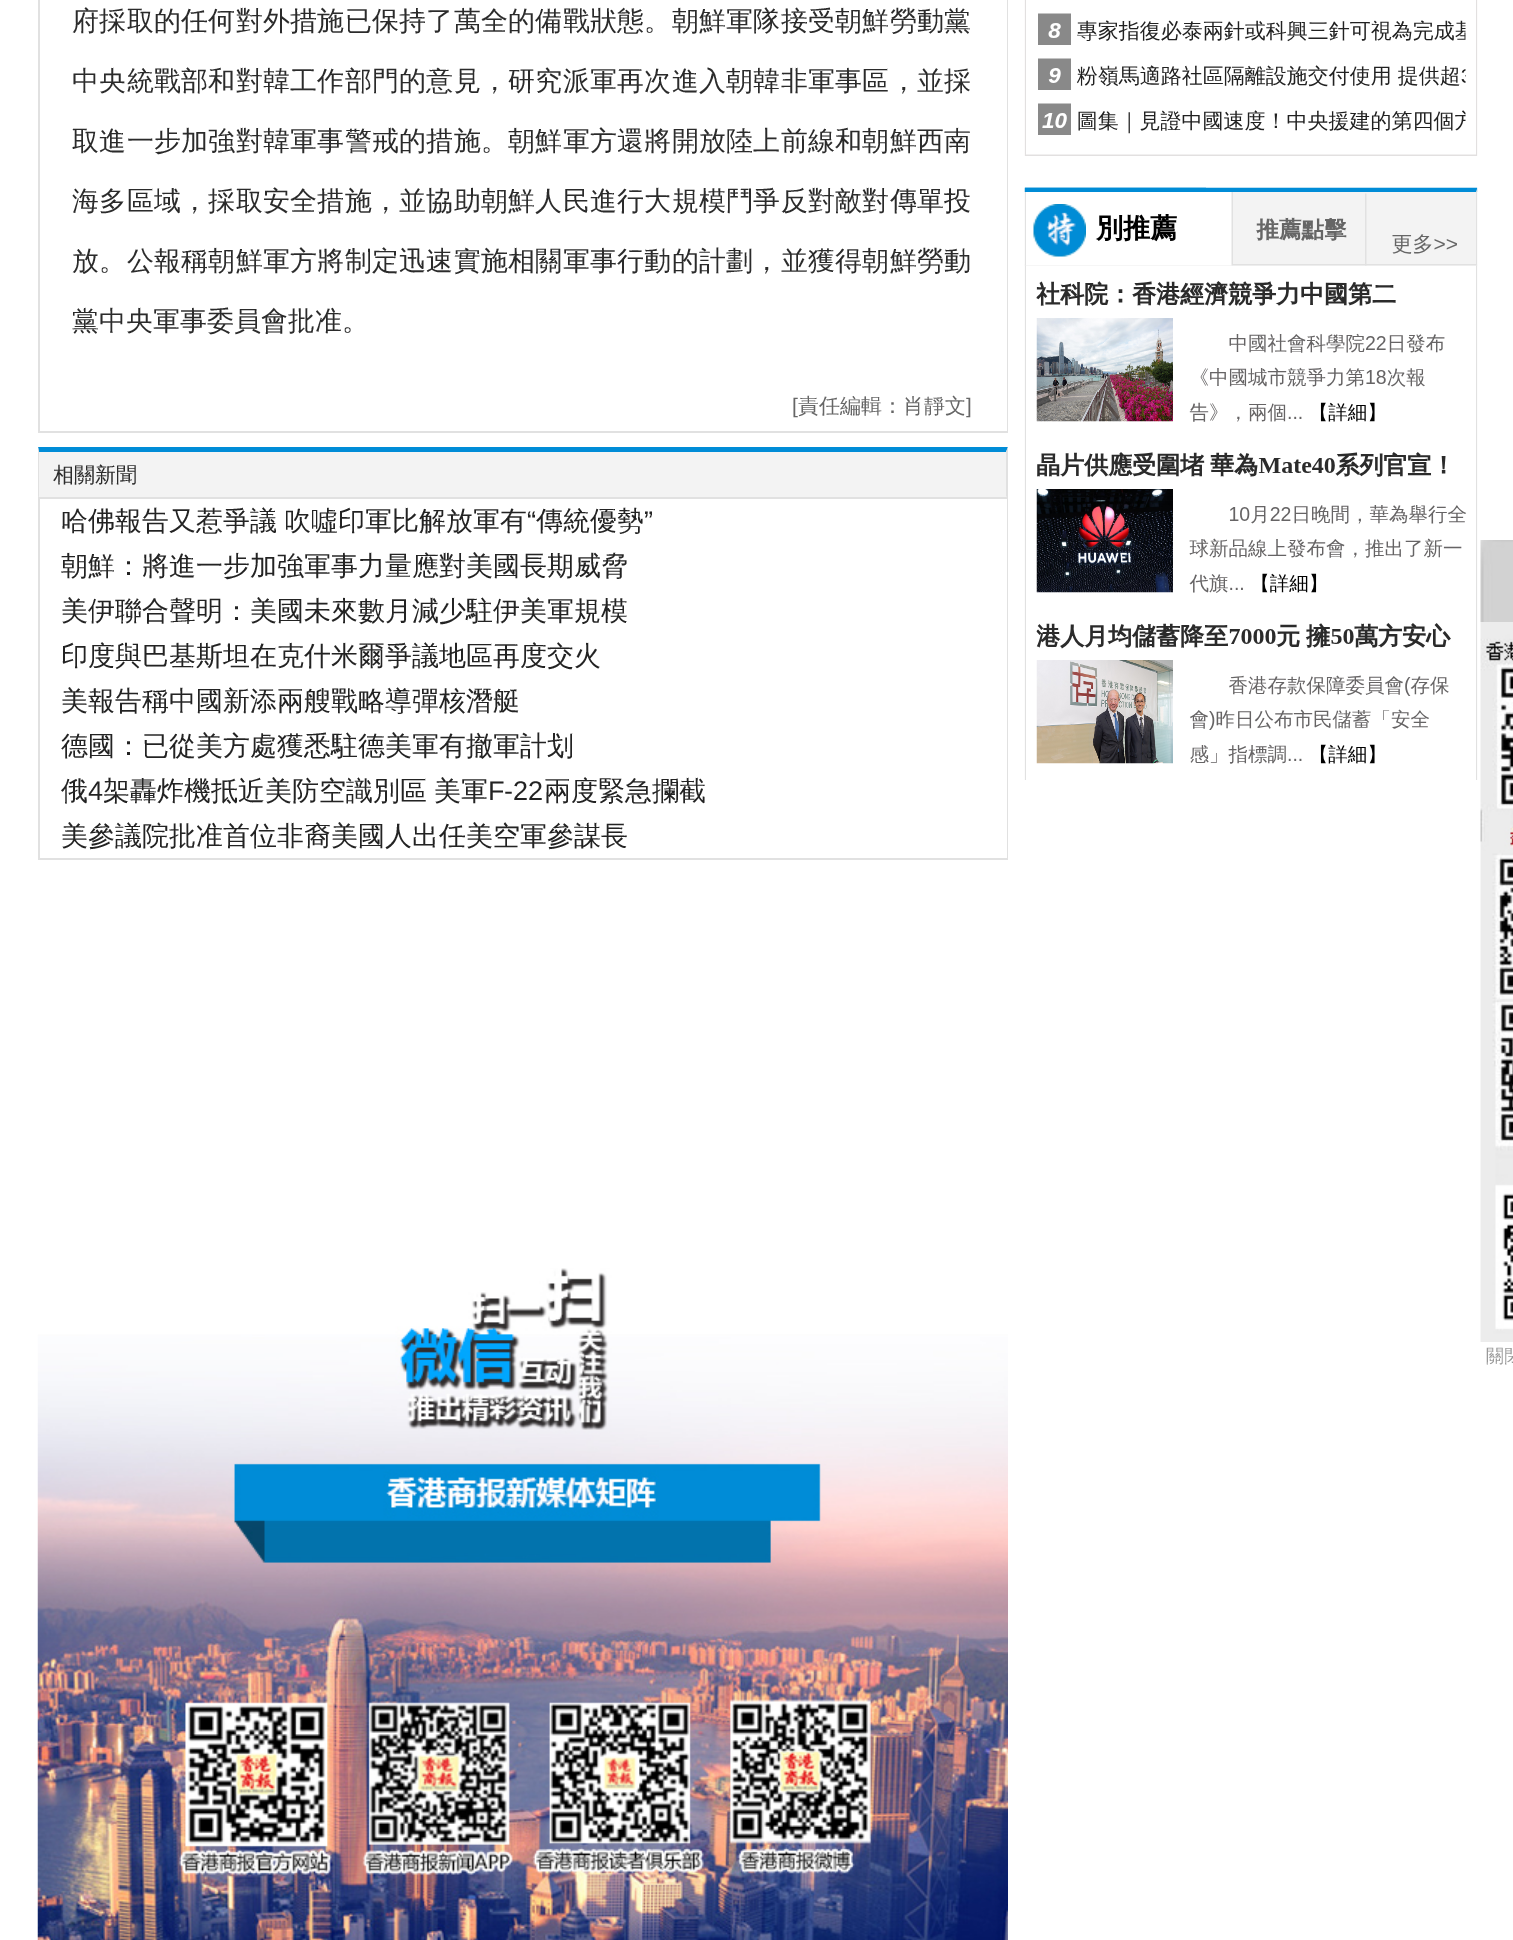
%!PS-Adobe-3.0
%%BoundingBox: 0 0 1513 1940
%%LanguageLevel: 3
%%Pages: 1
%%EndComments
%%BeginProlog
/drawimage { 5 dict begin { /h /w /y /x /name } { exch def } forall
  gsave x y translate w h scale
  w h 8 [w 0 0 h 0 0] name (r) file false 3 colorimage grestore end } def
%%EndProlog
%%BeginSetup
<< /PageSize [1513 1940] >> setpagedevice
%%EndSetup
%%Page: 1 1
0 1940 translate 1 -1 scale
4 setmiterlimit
1 setgray
0 0 1513 1940 rectfill
0.882 setgray
1007 0 1 432 rectfill
38 431 970 2 rectfill
38 0 2 432 rectfill
0.953 setgray
39 452 968 45 rectfill
0 0.549 0.843 setrgbcolor
newpath 38 447 moveto 1008 447 lineto 1006 452 lineto 39 452 lineto closepath fill
0.882 setgray
newpath 1008 447 moveto 1008 498 lineto 1006 496 lineto 1006 452 lineto closepath fill
38 497 970 2 rectfill
newpath 38 498 moveto 38 447 lineto 39 452 lineto 39 496 lineto closepath fill
1007 498 1 362 rectfill
38 858 970 2 rectfill
38 498 2 362 rectfill
(images/1.raw) 37 1268 971 672 drawimage
(images/2.raw) 1024 0 454 156 drawimage
(images/3.raw) 1024 187 454 593 drawimage
(images/4.raw) 1480 540 33 82 drawimage
(images/5.raw) 1480 622 33 720 drawimage
/WenQuanYiZenHei-Medium [27 0 0 -27 0 0] selectfont
0.169 setgray
72 30 moveto 0.25 0 (府採取的任何對外措施已保持了萬全的備戰狀態。朝鮮軍隊接受朝鮮勞動黨) ashow
72 90 moveto 0.25 0 (中央統戰部和對韓工作部門的意見，研究派軍再次進入朝韓非軍事區，並採) ashow
72 150 moveto 0.25 0 (取進一步加強對韓軍事警戒的措施。朝鮮軍方還將開放陸上前線和朝鮮西南) ashow
72 210 moveto 0.25 0 (海多區域，採取安全措施，並協助朝鮮人民進行大規模鬥爭反對敵對傳單投) ashow
72 270 moveto 0.25 0 (放。公報稱朝鮮軍方將制定迅速實施相關軍事行動的計劃，並獲得朝鮮勞動) ashow
72 330 moveto (黨中央軍事委員會批准。) show
/LiberationSans-Regular [21 0 0 -21 0 0] selectfont
0.4 setgray
792 413 moveto ([) show
/WenQuanYiZenHei-Medium [21 0 0 -21 0 0] selectfont
798 413 moveto (責任編輯：肖靜文) show
/LiberationSans-Regular [21 0 0 -21 0 0] selectfont
966 413 moveto (]) show
/WenQuanYiZenHei-Medium [21 0 0 -21 0 0] selectfont
0.169 setgray
53 482 moveto (相關新聞) show
/WenQuanYiZenHei-Medium [27 0 0 -27 0 0] selectfont
0.137 setgray
61 530 moveto -1 0 32 (哈佛報告又惹爭議 吹噓印軍比解放軍有) widthshow
/LiberationSans-Regular [27 0 0 -27 0 0] selectfont
527 530 moveto (“) show
/WenQuanYiZenHei-Medium [27 0 0 -27 0 0] selectfont
536 530 moveto (傳統優勢) show
/LiberationSans-Regular [27 0 0 -27 0 0] selectfont
644 530 moveto (”) show
/WenQuanYiZenHei-Medium [27 0 0 -27 0 0] selectfont
61 575 moveto (朝鮮：將進一步加強軍事力量應對美國長期威脅) show
61 620 moveto (美伊聯合聲明：美國未來數月減少駐伊美軍規模) show
61 665 moveto (印度與巴基斯坦在克什米爾爭議地區再度交火) show
61 710 moveto (美報告稱中國新添兩艘戰略導彈核潛艇) show
61 755 moveto (德國：已從美方處獲悉駐德美軍有撤軍計划) show
61 800 moveto (俄) show
/LiberationSans-Regular [27 0 0 -27 0 0] selectfont
88 800 moveto (4) show
/WenQuanYiZenHei-Medium [27 0 0 -27 0 0] selectfont
103 800 moveto -1 0 32 (架轟炸機抵近美防空識別區 美軍) widthshow
/LiberationSans-Regular [27 0 0 -27 0 0] selectfont
488 800 moveto (F-22) show
/WenQuanYiZenHei-Medium [27 0 0 -27 0 0] selectfont
544 800 moveto (兩度緊急攔截) show
61 845 moveto (美參議院批准首位非裔美國人出任美空軍參謀長) show
/WenQuanYiZenHei-Medium [18 0 0 -18 0 0] selectfont
0.6 setgray
1486 1362 moveto (關閉) show
showpage
%%EOF
